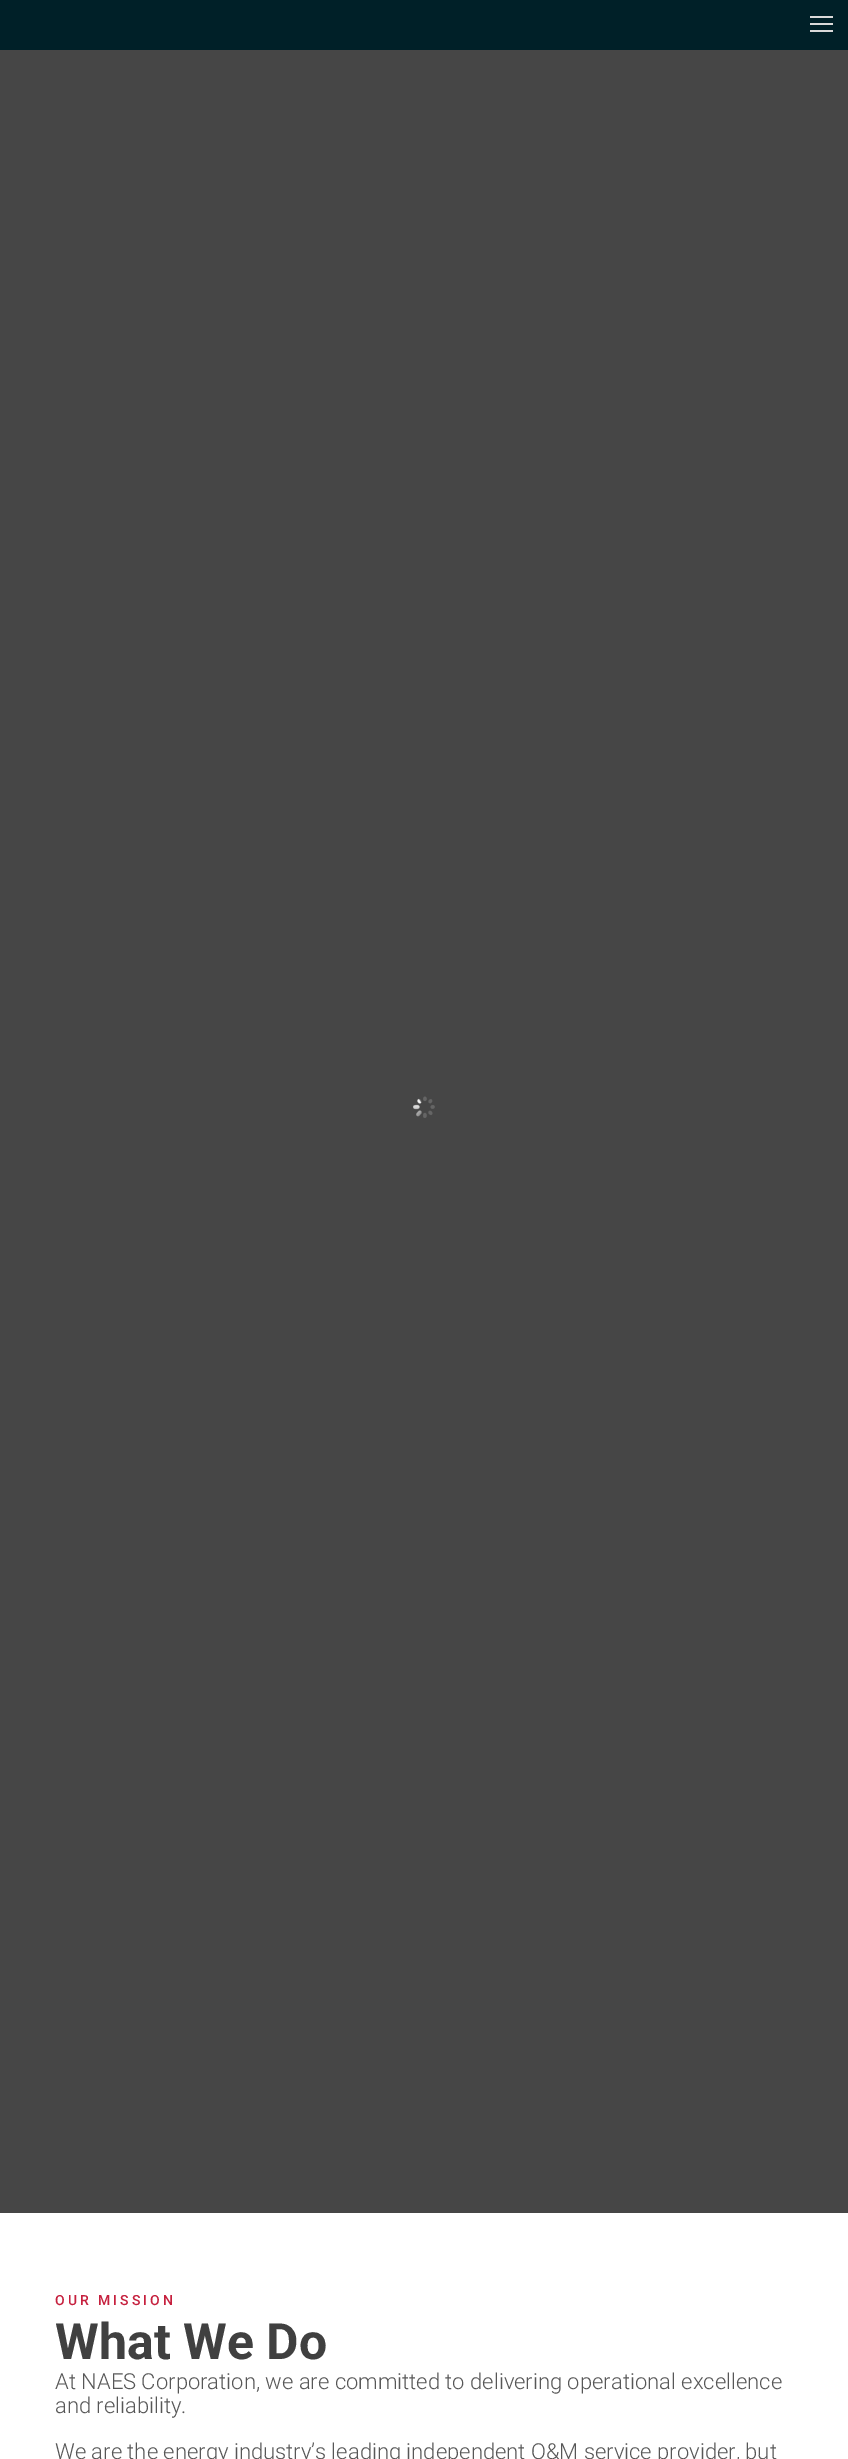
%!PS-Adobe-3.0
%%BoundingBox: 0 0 848 2459
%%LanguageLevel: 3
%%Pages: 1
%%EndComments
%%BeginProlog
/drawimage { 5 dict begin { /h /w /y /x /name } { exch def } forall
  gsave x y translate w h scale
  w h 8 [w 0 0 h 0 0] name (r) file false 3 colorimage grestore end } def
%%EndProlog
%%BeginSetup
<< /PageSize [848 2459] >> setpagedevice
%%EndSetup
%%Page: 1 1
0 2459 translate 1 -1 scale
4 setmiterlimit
1 setgray
0 0 848 2459 rectfill
0 0.125 0.157 setrgbcolor
0 0 848 50 rectfill
0.855 setgray
810 23 23 2 rectfill
810 16 23 2 rectfill
810 30 23 2 rectfill
0.275 setgray
0 50 848 2163 rectfill
(images/1.raw) 413 1096 22 22 drawimage
/Roboto-Medium [14 0 0 -14 0 0] selectfont
0.776 0.125 0.243 setrgbcolor
55 2305 moveto 3 0 (OUR MISSION) ashow
/Roboto-Bold [50 0 0 -50 0 0] selectfont
0.251 setgray
55 2359 moveto (What We Do) show
/Roboto-Light [22 0 0 -22 0 0] selectfont
0.341 setgray
55 2389 moveto (At NAES Corporation, we are committed to delivering operational excellence) show
55 2413 moveto (and reliability.) show
55 2459 moveto (We are the energy industry’s leading independent O&M service provider, but) show
showpage
%%EOF
